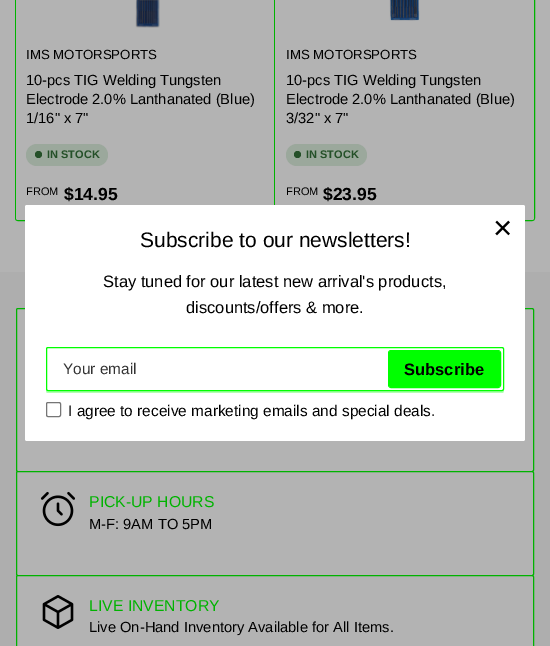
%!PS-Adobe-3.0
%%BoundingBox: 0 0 550 646
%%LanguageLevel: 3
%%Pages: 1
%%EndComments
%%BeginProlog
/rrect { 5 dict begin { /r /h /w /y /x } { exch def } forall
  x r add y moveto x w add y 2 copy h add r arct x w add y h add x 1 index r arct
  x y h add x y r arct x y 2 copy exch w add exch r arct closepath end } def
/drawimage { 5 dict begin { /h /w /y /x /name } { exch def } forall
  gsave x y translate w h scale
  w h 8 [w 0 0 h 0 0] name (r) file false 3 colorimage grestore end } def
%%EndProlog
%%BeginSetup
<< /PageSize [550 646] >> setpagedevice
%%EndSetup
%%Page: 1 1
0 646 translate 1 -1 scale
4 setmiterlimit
0.702 setgray
0 0 550 646 rectfill
0 0.702 0 setrgbcolor
newpath 18 -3.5 moveto 275.5 -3.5 lineto 275.5 220.5 lineto 18 220.5 lineto 16.5 220.5 15.5 219.5 15.5 218 curveto 15.5 -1 lineto 15.5 -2.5 16.5 -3.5 18 -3.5 curveto closepath stroke
0.702 setgray
newpath 18 -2 moveto 275 -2 lineto 275 220 lineto 18 220 lineto 17 220 16 219 16 218 curveto 16 0 lineto 16 -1 17 -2 18 -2 curveto closepath fill
(images/1.raw) 135 0 25 28 drawimage
0.608 0.659 0.612 setrgbcolor
26 144 82 22 11 rrect fill
0.141 0.314 0.157 setrgbcolor
newpath 38.5 154.5 3.5 0 360 arc closepath fill
0 0.702 0 setrgbcolor
newpath 274.5 -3.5 moveto 532 -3.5 lineto 533.5 -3.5 534.5 -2.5 534.5 -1 curveto 534.5 218 lineto 534.5 219.5 533.5 220.5 532 220.5 curveto 274.5 220.5 lineto closepath stroke
0.702 setgray
newpath 275 -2 moveto 532 -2 lineto 533 -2 534 -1 534 0 curveto 534 218 lineto 534 219 533 220 532 220 curveto 275 220 lineto closepath fill
(images/2.raw) 389 0 31 21 drawimage
0.608 0.659 0.612 setrgbcolor
286 144 81 22 11 rrect fill
0.141 0.314 0.157 setrgbcolor
newpath 297.5 154.5 3.5 0 360 arc closepath fill
0.682 setgray
0 272 550 374 rectfill
0.702 setgray
16.5 308.5 517 163 1.5 rrect gsave fill grestore
0 0.702 0 setrgbcolor
stroke
1 setgray
25 205 500 236 2 rrect fill
0.702 1 0.702 setrgbcolor
newpath 46 389 moveto 46 392 lineto 47 393 lineto 502 393 lineto 504 393 504 391 504 389 curveto 504 390 503 391 502 391 curveto 48 391 lineto 47 391 46 390 46 389 curveto closepath fill
1 setgray
46.5 347.5 457 43 1.5 rrect gsave fill grestore
0 1 0 setrgbcolor
stroke
388.5 350.5 112 37 2.5 rrect stroke
389 351 111 36 2 rrect fill
0.463 setgray
46.5 402.5 14 14 1.5 rrect stroke
0.702 setgray
16.5 471.5 517 104 1.5 rrect gsave fill grestore
0 0.702 0 setrgbcolor
stroke
(images/3.raw) 40 491 35 36 drawimage
0.702 setgray
16.5 575.5 517 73 1.5 rrect gsave fill grestore
0 0.702 0 setrgbcolor
stroke
(images/4.raw) 42 595 32 34 drawimage
/LiberationSans-Regular [13.25 0 0 -13.25 0 0] selectfont
0 setgray
26 59 moveto (IMS MOTORSPORTS) show
/LiberationSans-Regular [14.7 0 0 -14.7 0 0] selectfont
26 85 moveto (10-pcs TIG Welding Tungsten) show
26 104 moveto (Electrode 2.0% Lanthanated \(Blue\)) show
26 123 moveto (1/16" x 7") show
/LiberationSans-Bold [11 0 0 -11 0 0] selectfont
0.141 0.314 0.157 setrgbcolor
47 158 moveto (IN STOCK) show
/LiberationSans-Regular [11 0 0 -11 0 0] selectfont
0 setgray
26 195 moveto (FROM) show
/LiberationSans-Bold [17.5 0 0 -17.5 0 0] selectfont
64 200 moveto ($14.95) show
/LiberationSans-Regular [13.25 0 0 -13.25 0 0] selectfont
286 59 moveto (IMS MOTORSPORTS) show
/LiberationSans-Regular [14.7 0 0 -14.7 0 0] selectfont
286 85 moveto (10-pcs TIG Welding Tungsten) show
286 104 moveto (Electrode 2.0% Lanthanated \(Blue\)) show
286 123 moveto (3/32" x 7") show
/LiberationSans-Bold [11 0 0 -11 0 0] selectfont
0.141 0.314 0.157 setrgbcolor
306 158 moveto (IN STOCK) show
/LiberationSans-Regular [11 0 0 -11 0 0] selectfont
0 setgray
286 195 moveto (FROM) show
/LiberationSans-Bold [17.5 0 0 -17.5 0 0] selectfont
323 200 moveto ($23.95) show
/LiberationSans-Regular [33 0 0 -33 0 0] selectfont
493 239 moveto (×) show
/LiberationSans-Regular [21 0 0 -21 0 0] selectfont
140 247 moveto (Subscribe to our newsletters!) show
/LiberationSans-Regular [16.5 0 0 -16.5 0 0] selectfont
103 287 moveto (Stay tuned for our latest new arrival's products,) show
186 313 moveto (discounts/offers & more.) show
/LiberationSans-Regular [15.4 0 0 -15.4 0 0] selectfont
0.2 setgray
63 374 moveto (Your email) show
/LiberationSans-Bold [16.5 0 0 -16.5 0 0] selectfont
0 setgray
404 375 moveto (Subscribe) show
/LiberationSans-Regular [15.4 0 0 -15.4 0 0] selectfont
68 416 moveto (I agree to receive marketing emails and special deals.) show
/LiberationSans-Regular [15.75 0 0 -15.75 0 0] selectfont
0 0.702 0 setrgbcolor
89 507 moveto (PICK-UP HOURS) show
/LiberationSans-Regular [14.7 0 0 -14.7 0 0] selectfont
0 setgray
89 529 moveto (M-F: 9AM TO 5PM) show
/LiberationSans-Regular [15.75 0 0 -15.75 0 0] selectfont
0 0.702 0 setrgbcolor
89 611 moveto (LIVE INVENTORY) show
/LiberationSans-Regular [14.7 0 0 -14.7 0 0] selectfont
0 setgray
89 632 moveto (Live On-Hand Inventory Available for All Items.) show
showpage
%%EOF
